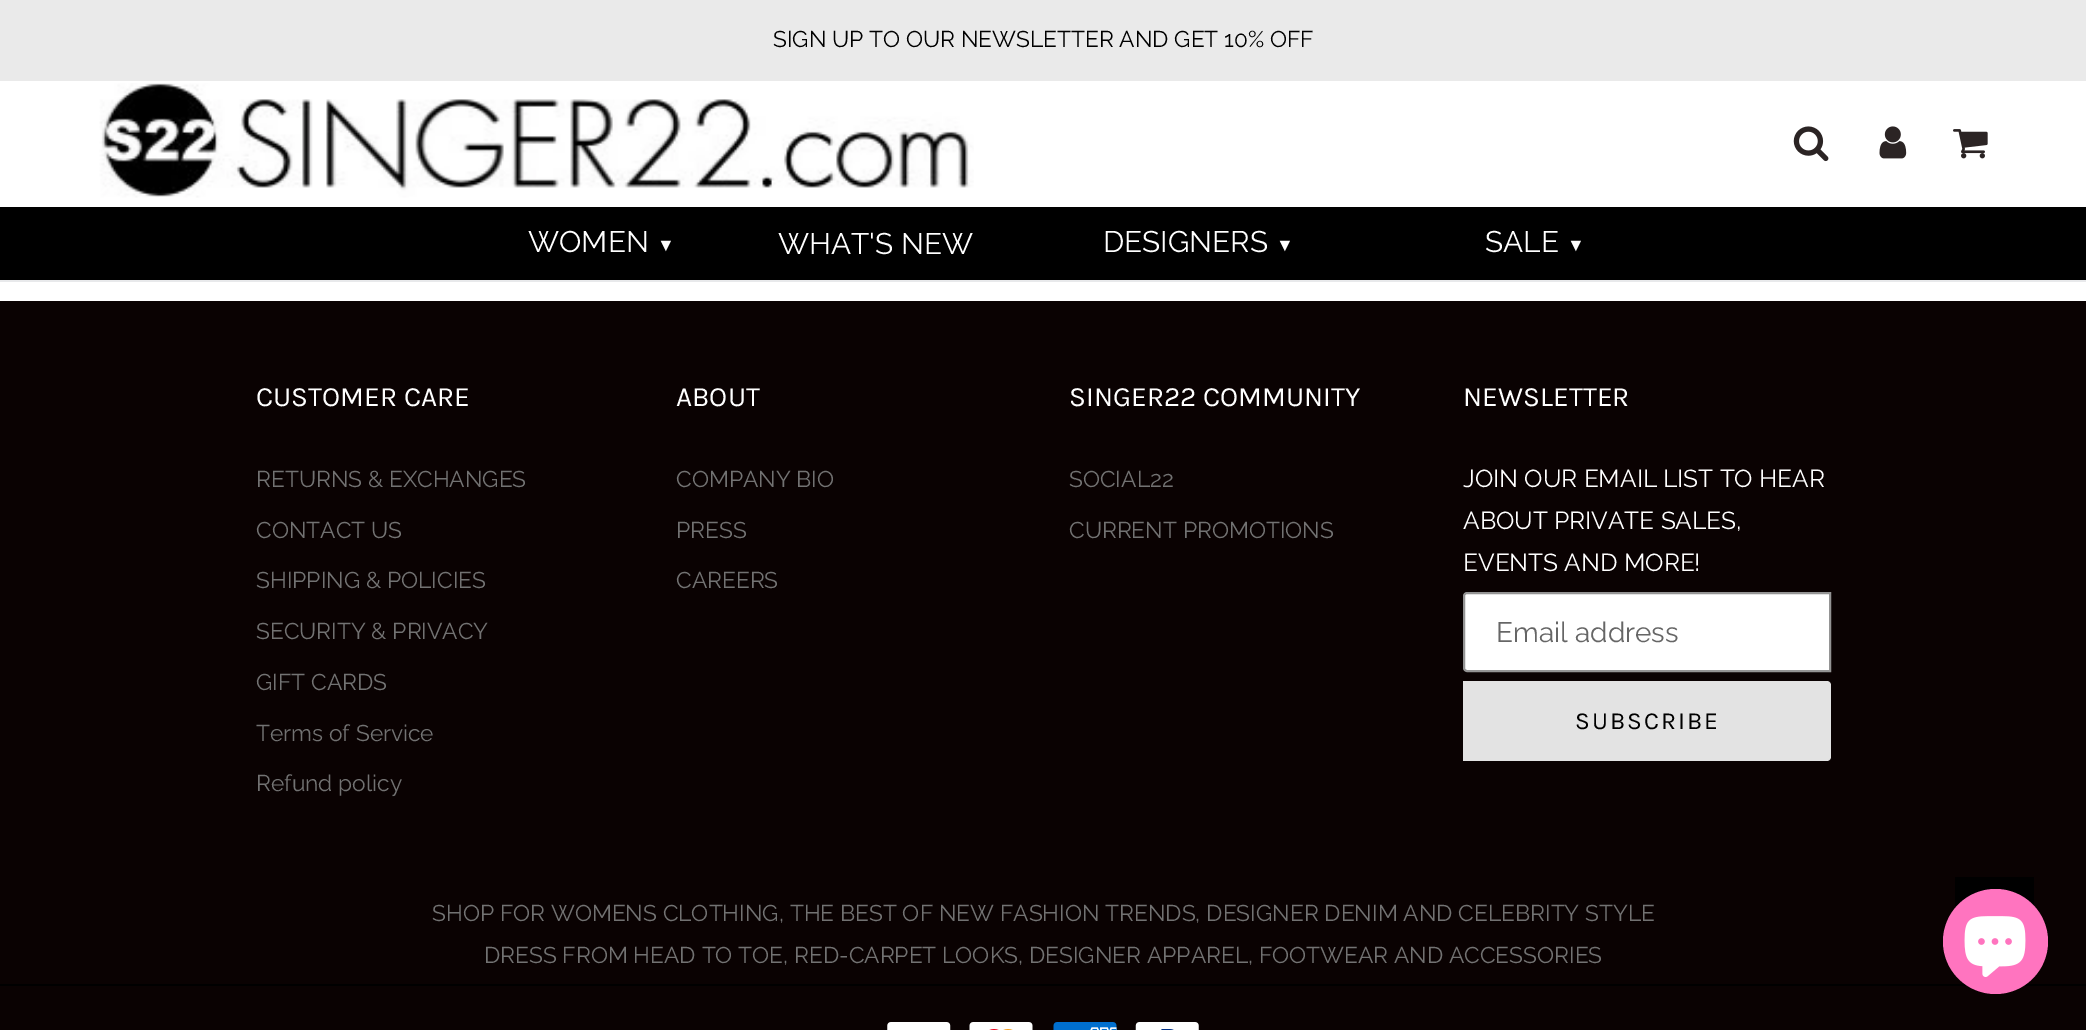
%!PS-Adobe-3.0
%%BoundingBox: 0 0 2086 1030
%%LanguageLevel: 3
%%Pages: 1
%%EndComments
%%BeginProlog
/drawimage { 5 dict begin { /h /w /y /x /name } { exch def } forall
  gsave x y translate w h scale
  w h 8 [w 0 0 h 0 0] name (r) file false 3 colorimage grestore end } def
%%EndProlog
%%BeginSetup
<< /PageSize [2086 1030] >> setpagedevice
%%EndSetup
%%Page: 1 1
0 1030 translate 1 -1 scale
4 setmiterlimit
1 setgray
0 0 2086 1030 rectfill
0.918 setgray
0 0 2086 81 rectfill
0.91 0.914 0.922 setrgbcolor
0 280 2086 2 rectfill
(images/1.raw) 99 83 875 115 drawimage
(images/2.raw) 1793 126 36 36 drawimage
(images/3.raw) 1879 126 28 33 drawimage
(images/4.raw) 1953 129 35 30 drawimage
0 setgray
0 207 2086 73 rectfill
0.039 0.008 0.008 setrgbcolor
0 301 2086 729 rectfill
1 setgray
newpath 1467 593 moveto 1830 593 lineto 1830 671 lineto 1467 671 lineto 1465.5 671 1464 669.5 1464 668 curveto 1464 596 lineto 1464 594.5 1465.5 593 1467 593 curveto closepath gsave fill grestore
0.58 setgray
2 setlinewidth
stroke
0.89 setgray
newpath 1463 681 moveto 1827 681 lineto 1829 681 1831 683 1831 685 curveto 1831 757 lineto 1831 759 1829 761 1827 761 curveto 1463 761 lineto closepath fill
0 setgray
0 984 2086 2 rectfill
(images/5.raw) 887 1022 64 8 drawimage
(images/6.raw) 969 1022 64 8 drawimage
(images/7.raw) 1053 1022 64 8 drawimage
(images/8.raw) 1135 1022 64 8 drawimage
1955 877 79 31 rectfill
1 0.455 0.749 setrgbcolor
newpath 1995.5 941.5 52.5 0 360 arc closepath fill
(images/9.raw) 1964 916 62 61 drawimage
/Raleway-Regular [22.75 0 0 -22.75 0 0] selectfont
0 setgray
773 47 moveto (SIGN UP TO OUR NEWSLETTER AND GET 10% OFF) show
/Raleway-Regular [29.75 0 0 -29.75 0 0] selectfont
1 setgray
528 252 moveto (WOMEN) show
/LiberationSans-Regular [18 0 0 -18 0 0] selectfont
657 251 moveto (▼) show
/Raleway-Regular [29.75 0 0 -29.75 0 0] selectfont
778 254 moveto (WHAT'S NEW) show
1103 252 moveto (DESIGNERS) show
/LiberationSans-Regular [18 0 0 -18 0 0] selectfont
1276 251 moveto (▼) show
/Raleway-Regular [29.75 0 0 -29.75 0 0] selectfont
1485 252 moveto (SALE) show
/LiberationSans-Regular [18 0 0 -18 0 0] selectfont
1567 251 moveto (▼) show
/Karla-Regular [28 0 0 -28 0 0] selectfont
256 406 moveto (CUSTOMER CARE) show
/Raleway-Regular [22.75 0 0 -22.75 0 0] selectfont
0.447 setgray
256 487 moveto (RETURNS & EXCHANGES) show
256 538 moveto (CONTACT US) show
256 588 moveto (SHIPPING & POLICIES) show
256 639 moveto (SECURITY & PRIVACY) show
256 690 moveto (GIFT CARDS) show
256 741 moveto (Terms of Service) show
256 791 moveto (Refund policy) show
/Karla-Regular [28 0 0 -28 0 0] selectfont
1 setgray
676 406 moveto (ABOUT) show
/Raleway-Regular [22.75 0 0 -22.75 0 0] selectfont
0.447 setgray
676 487 moveto (COMPANY BIO) show
676 538 moveto (PRESS) show
676 588 moveto (CAREERS) show
/Karla-Regular [28 0 0 -28 0 0] selectfont
1 setgray
1069 406 moveto (SINGER22 COMMUNITY) show
/Raleway-Regular [22.75 0 0 -22.75 0 0] selectfont
0.447 setgray
1069 487 moveto (SOCIAL22) show
1069 538 moveto (CURRENT PROMOTIONS) show
/Karla-Regular [28 0 0 -28 0 0] selectfont
1 setgray
1463 406 moveto (NEWSLETTER) show
/Raleway-Regular [24.5 0 0 -24.5 0 0] selectfont
1463 487 moveto (JOIN OUR EMAIL LIST TO HEAR) show
1463 529 moveto (ABOUT PRIVATE SALES,) show
1463 571 moveto (EVENTS AND MORE!) show
/Raleway-Regular [28 0 0 -28 0 0] selectfont
0.4 setgray
1496 642 moveto (Email address) show
/Karla-Regular [24.5 0 0 -24.5 0 0] selectfont
0 setgray
1575 729 moveto 2 0 (SUBSCRIBE) ashow
/Raleway-Regular [22.75 0 0 -22.75 0 0] selectfont
0.447 setgray
432 921 moveto (SHOP FOR WOMENS CLOTHING, THE BEST OF NEW FASHION TRENDS, DESIGNER DENIM AND CELEBRITY STYLE) show
484 963 moveto (DRESS FROM HEAD TO TOE, RED-CARPET LOOKS, DESIGNER APPAREL, FOOTWEAR AND ACCESSORIES) show
showpage
%%EOF
